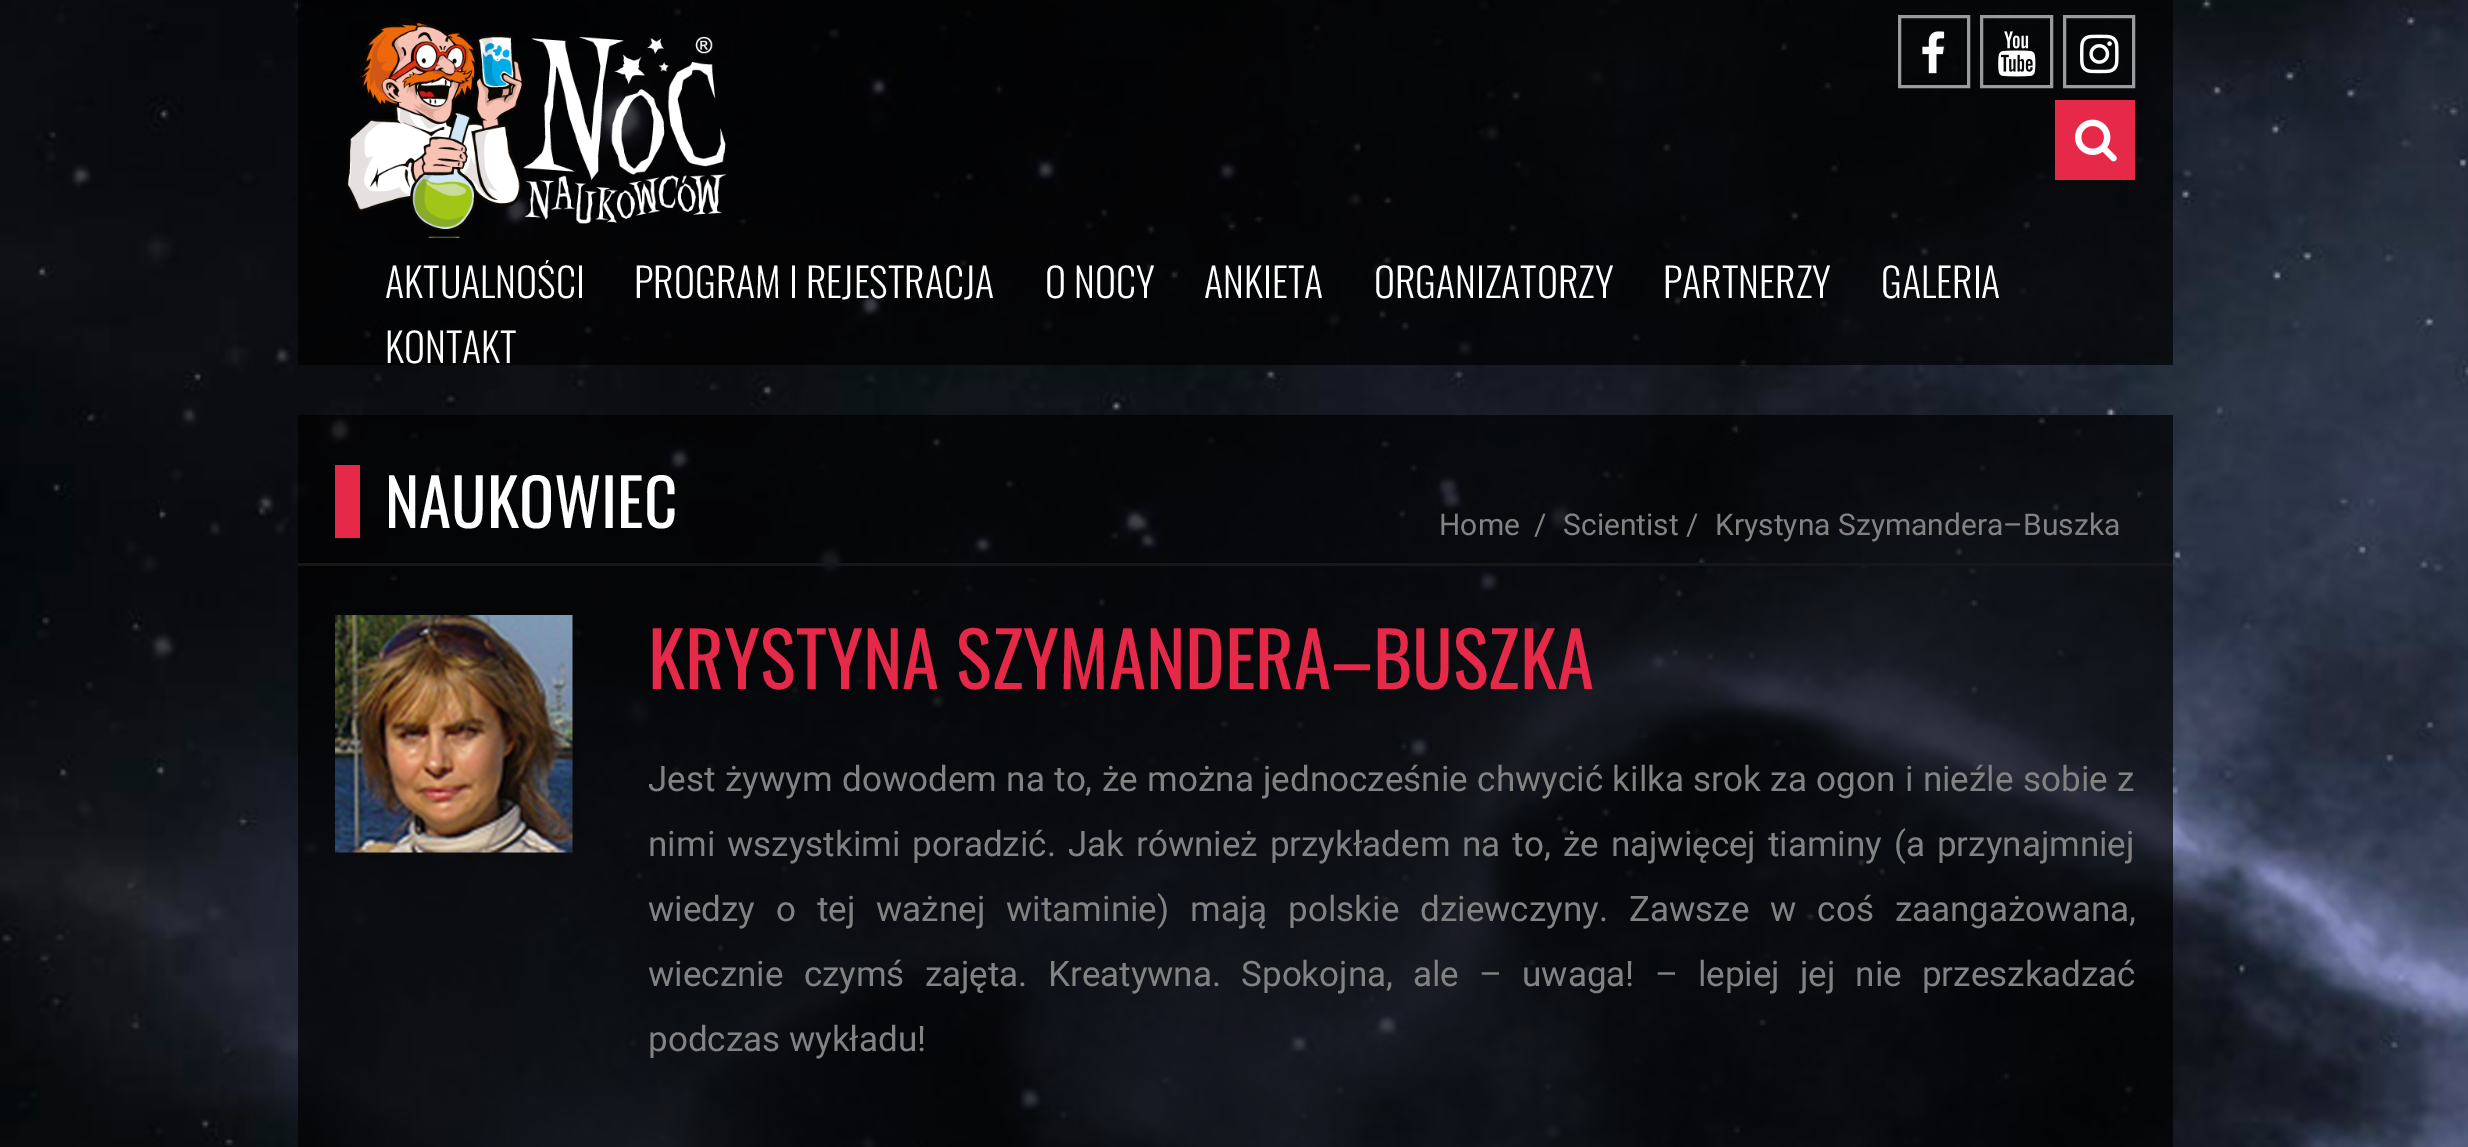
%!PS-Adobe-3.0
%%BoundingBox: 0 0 2468 1147
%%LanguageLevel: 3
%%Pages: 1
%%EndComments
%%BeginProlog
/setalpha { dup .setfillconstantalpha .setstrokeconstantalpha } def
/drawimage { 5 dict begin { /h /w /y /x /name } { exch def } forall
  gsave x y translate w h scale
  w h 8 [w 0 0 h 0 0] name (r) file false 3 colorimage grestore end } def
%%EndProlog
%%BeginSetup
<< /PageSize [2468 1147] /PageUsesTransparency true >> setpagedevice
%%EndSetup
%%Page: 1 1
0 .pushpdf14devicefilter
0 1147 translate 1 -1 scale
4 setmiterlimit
1 setgray
0 0 2468 1147 rectfill
(images/1.raw) 0 0 2468 1147 drawimage
0.7 setalpha
0 setgray
298 0 1875 365 rectfill
1 setalpha
(images/2.raw) 346 21 381 217 drawimage
0.608 setgray
3 setlinewidth
1899.5 16.5 69 70 rectstroke
(images/3.raw) 1922 31 23 43 drawimage
1981.5 16.5 70 70 rectstroke
(images/4.raw) 1998 31 38 46 drawimage
2064.5 16.5 69 70 rectstroke
(images/5.raw) 2080 34 39 40 drawimage
0.902 0.161 0.282 setrgbcolor
2055 100 80 80 rectfill
(images/6.raw) 2075 119 42 43 drawimage
0.7 setalpha
0 setgray
298 415 1875 200 rectfill
1 setalpha
0.09 setgray
298 563 1875 3 rectfill
0.902 0.161 0.282 setrgbcolor
335 465 25 73 rectfill
0.7 setalpha
0 setgray
298 615 1875 532 rectfill
1 setalpha
(images/7.raw) 335 615 238 238 drawimage
gsave
385 260 200 40 rectclip
/Oswald-Light [40 0 0 -40 0 0] selectfont
1 setgray
385 298 moveto (AKTUALNOŚCI) show
grestore
/Oswald-Light [40 0 0 -40 0 0] selectfont
1 setgray
634 298 moveto (PROGRAM I REJESTRACJA) show
1045 298 moveto (O NOCY) show
1204 298 moveto (ANKIETA) show
1374 298 moveto (ORGANIZATORZY) show
1663 298 moveto (PARTNERZY) show
1881 298 moveto (GALERIA) show
385 363 moveto (KONTAKT) show
/Oswald-Regular [65 0 0 -65 0 0] selectfont
385 528 moveto (NAUKOWIEC) show
/Roboto-Regular [30 0 0 -30 0 0] selectfont
0.51 setgray
1439 535 moveto (Home) show
1534 535 moveto (/) show
1563 535 moveto (Scientist /) show
1715 535 moveto (Krystyna Szymandera–Buszka) show
/Oswald-Regular [75 0 0 -75 0 0] selectfont
0.902 0.161 0.282 setrgbcolor
648 689 moveto (KRYSTYNA SZYMANDERA–BUSZKA) show
/Roboto-Regular [35 0 0 -35 0 0] selectfont
0.51 setgray
648 791 moveto 0.8 0 32 (Jest żywym dowodem na to, że można jednocześnie chwycić kilka srok za ogon i nieźle sobie z) widthshow
648 856 moveto 3.25 0 32 (nimi wszystkimi poradzić. Jak również przykładem na to, że najwięcej tiaminy \(a przynajmniej) widthshow
648 921 moveto 12.25 0 32 (wiedzy o tej ważnej witaminie\) mają polskie dziewczyny. Zawsze w coś zaangażowana,) widthshow
648 986 moveto 11.4 0 32 (wiecznie czymś zajęta. Kreatywna. Spokojna, ale – uwaga! – lepiej jej nie przeszkadzać) widthshow
648 1051 moveto (podczas wykładu!) show
.poppdf14devicefilter showpage
%%EOF
